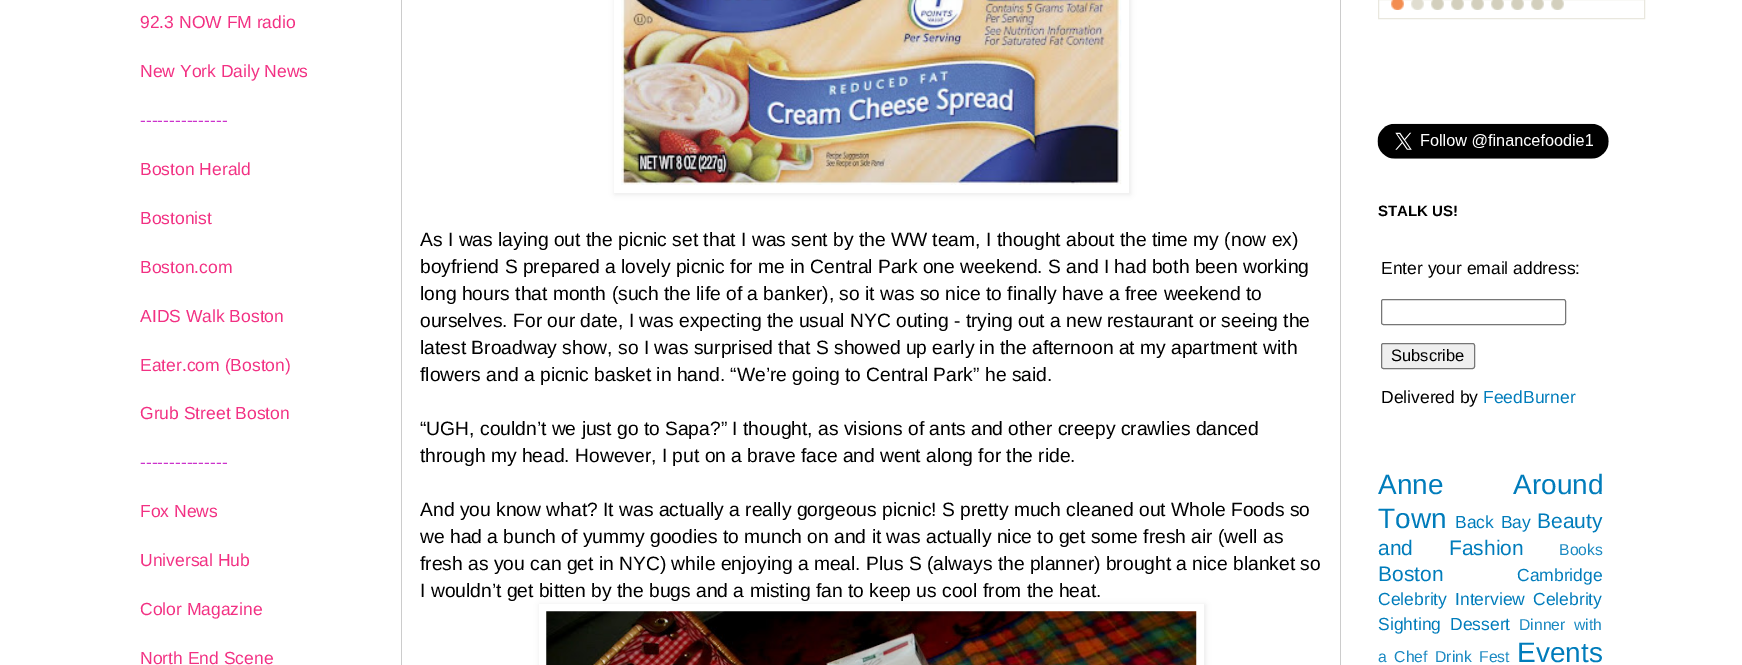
%!PS-Adobe-3.0
%%BoundingBox: 0 0 1742 665
%%LanguageLevel: 3
%%Pages: 1
%%EndComments
%%BeginProlog
/setalpha { dup .setfillconstantalpha .setstrokeconstantalpha } def
/rrect { 5 dict begin { /r /h /w /y /x } { exch def } forall
  x r add y moveto x w add y 2 copy h add r arct x w add y h add x 1 index r arct
  x y h add x y r arct x y 2 copy exch w add exch r arct closepath end } def
/softshadow { 12 dict begin { /a /b /q /h /w /y /x } { exch def } forall gsave /was 0 def
  9 -2 -9 { dup b mul 4 div /e exch def 1 sub .425 mul 2.718 exch exp 1 add a .99 .min exch div /now exch def
    1 1 now sub 1 was sub div sub setalpha /was now def
    w h .min e 2 mul add 0 gt { x e sub y e sub w e 2 mul add h e 2 mul add
      q e add b .6 mul add w h .min 2 div e add .min 0 .max rrect fill } if } for grestore end } def
/drawimage { 5 dict begin { /h /w /y /x /name } { exch def } forall
  gsave x y translate w h scale
  w h 8 [w 0 0 h 0 0] name (r) file false 3 colorimage grestore end } def
%%EndProlog
%%BeginSetup
<< /PageSize [1742 665] /PageUsesTransparency true >> setpagedevice
%%EndSetup
%%Page: 1 1
0 .pushpdf14devicefilter
0 665 translate 1 -1 scale
4 setmiterlimit
1 setgray
0 0 1742 665 rectfill
0.8 setgray
401 0 1 665 rectfill
1340 0 1 665 rectfill
0 setgray
615 -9 515 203 0 3 0.1 softshadow
1 setgray
614 0 515 193 rectfill
(images/1.raw) 621 0 501 185 drawimage
0 setgray
540 605 665 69 0 3 0.1 softshadow
1 setgray
539 604 665 61 rectfill
(images/2.raw) 546 611 651 54 drawimage
0.914 0.906 0.871 setrgbcolor
1378.5 -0.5 266 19 rectstroke
(images/3.raw) 1391 0 13 10 drawimage
(images/4.raw) 1411 0 13 10 drawimage
(images/5.raw) 1431 0 13 10 drawimage
(images/5.raw) 1451 0 13 10 drawimage
(images/5.raw) 1471 0 13 10 drawimage
(images/5.raw) 1491 0 13 10 drawimage
(images/5.raw) 1511 0 13 10 drawimage
(images/5.raw) 1531 0 13 10 drawimage
(images/5.raw) 1551 0 13 10 drawimage
(images/6.raw) 1377 123 232 36 drawimage
0.463 setgray
1381.5 299.5 184 25 2 rrect stroke
0.937 setgray
1381.5 343.5 93 25 2 rrect gsave fill grestore
0.463 setgray
stroke
/LiberationSans-Regular [17.5 0 0 -17.5 0 0] selectfont
0.949 0.192 0.514 setrgbcolor
140 28 moveto (92.3 NOW FM radio) show
140 77 moveto (New York Daily News) show
0.8 0.2 0.8 setrgbcolor
140 126 moveto (---------------) show
0.949 0.192 0.514 setrgbcolor
140 175 moveto (Boston Herald) show
140 224 moveto (Bostonist) show
140 273 moveto (Boston.com) show
140 322 moveto (AIDS Walk Boston) show
140 371 moveto (Eater.com \(Boston\)) show
140 419 moveto (Grub Street Boston) show
0.8 0.2 0.8 setrgbcolor
140 468 moveto (---------------) show
0.949 0.192 0.514 setrgbcolor
140 517 moveto (Fox News) show
140 566 moveto (Universal Hub) show
140 615 moveto (Color Magazine) show
140 664 moveto (North End Scene) show
/LiberationSans-Regular [19.25 0 0 -19.25 0 0] selectfont
0 setgray
420 246 moveto (As I was laying out the picnic set that I was sent by the WW team, I thought about the time my \(now ex\)) show
420 273 moveto (boyfriend S prepared a lovely picnic for me in Central Park one weekend.) show
1048 273 moveto (S and I had both been working) show
420 300 moveto (long hours that month \(such the life of a banker\), so it was so nice to finally have a free weekend to) show
420 327 moveto (ourselves. For our date, I was expecting the usual NYC outing - trying out a new restaurant or seeing the) show
420 354 moveto (latest Broadway show, so I was surprised that S showed up early in the afternoon at my apartment with) show
420 381 moveto (flowers and a picnic basket in hand. “We’re going to Central Park” he said.) show
420 435 moveto (“UGH, couldn’t we just go to Sapa?” I thought, as visions of ants and other creepy crawlies danced) show
420 462 moveto (through my head. However, I put on a brave face and went along for the ride.) show
420 516 moveto (And you know what? It was actually a really gorgeous picnic! S pretty much cleaned out Whole Foods so) show
420 543 moveto (we had a bunch of yummy goodies to munch on and it was actually nice to get some fresh air \(well as) show
420 570 moveto (fresh as you can get in NYC\) while enjoying a meal. Plus S \(always the planner\) brought a nice blanket so) show
420 597 moveto (I wouldn’t get bitten by the bugs and a misting fan to keep us cool from the heat.) show
/LiberationSans-Bold [15 0 0 -15 0 0] selectfont
1378 216 moveto (STALK US!) show
/LiberationSans-Regular [17.5 0 0 -17.5 0 0] selectfont
1381 274 moveto (Enter your email address:) show
/LiberationSans-Regular [16.5 0 0 -16.5 0 0] selectfont
1391 361 moveto (Subscribe) show
/LiberationSans-Regular [17.5 0 0 -17.5 0 0] selectfont
1381 403 moveto (Delivered by) show
0 0.486 0.733 setrgbcolor
1483 403 moveto (FeedBurner) show
/LiberationSans-Regular [28 0 0 -28 0 0] selectfont
1378 494 moveto 62 0 32 (Anne Around) widthshow
1378 528 moveto (Town) show
/LiberationSans-Regular [17.5 0 0 -17.5 0 0] selectfont
1455 528 moveto 2 0 32 (Back Bay) widthshow
/LiberationSans-Regular [21 0 0 -21 0 0] selectfont
1537 528 moveto (Beauty) show
1378 555 moveto 30 0 32 (and Fashion) widthshow
/LiberationSans-Regular [15.75 0 0 -15.75 0 0] selectfont
0.102 0.537 0.761 setrgbcolor
1559 555 moveto (Books) show
/LiberationSans-Regular [21 0 0 -21 0 0] selectfont
0 0.486 0.733 setrgbcolor
1378 581 moveto (Boston) show
/LiberationSans-Regular [17.5 0 0 -17.5 0 0] selectfont
1517 581 moveto (Cambridge) show
1378 605 moveto (Celebrity) show
1455 605 moveto (Interview) show
1533 605 moveto (Celebrity) show
1378 630 moveto (Sighting) show
1450 630 moveto (Dessert) show
/LiberationSans-Regular [15.75 0 0 -15.75 0 0] selectfont
0.102 0.537 0.761 setrgbcolor
1519 630 moveto 4 0 32 (Dinner with) widthshow
1378 662 moveto 3 0 32 (a Chef) widthshow
1435 662 moveto 3 0 32 (Drink Fest) widthshow
/LiberationSans-Regular [28 0 0 -28 0 0] selectfont
0 0.486 0.733 setrgbcolor
1517 662 moveto (Events) show
.poppdf14devicefilter showpage
%%EOF
